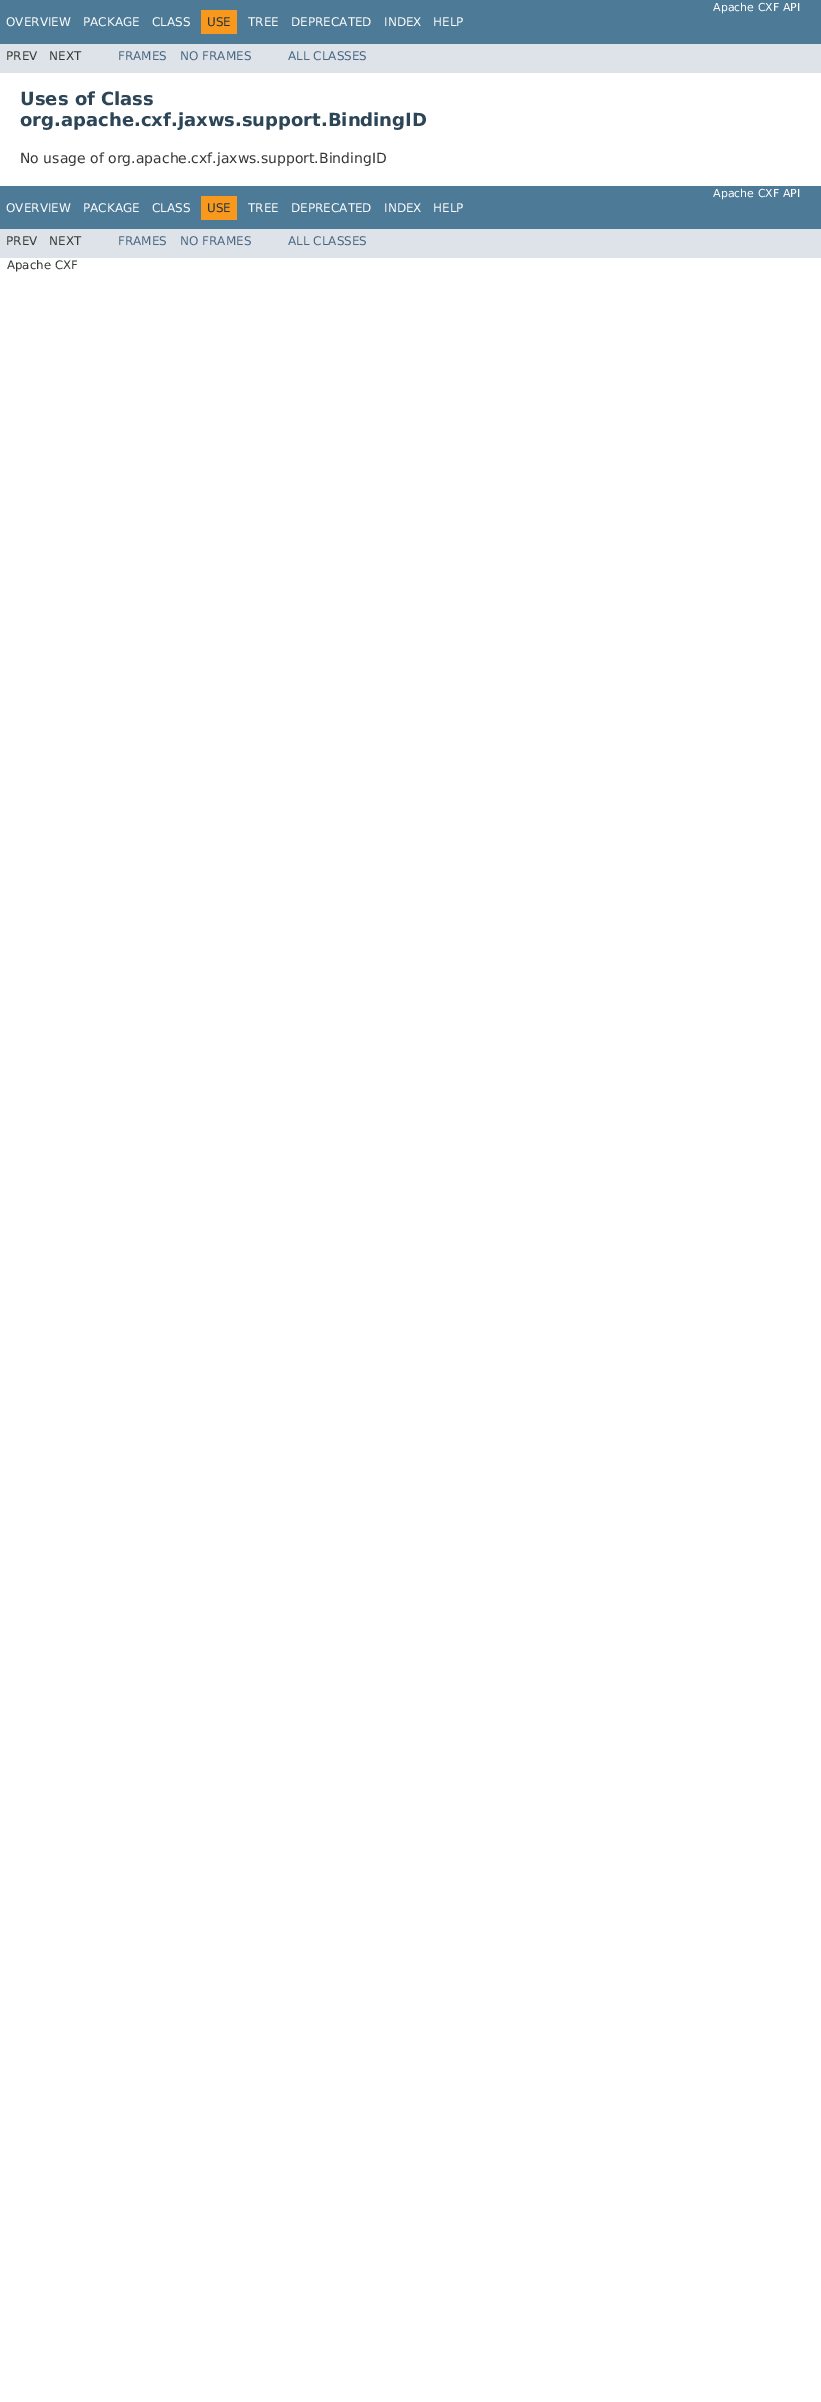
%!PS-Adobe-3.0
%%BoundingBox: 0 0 821 2402
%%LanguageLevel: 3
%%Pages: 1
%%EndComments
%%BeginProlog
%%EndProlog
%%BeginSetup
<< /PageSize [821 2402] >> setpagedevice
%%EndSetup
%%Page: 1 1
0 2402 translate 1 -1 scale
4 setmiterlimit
1 setgray
0 0 821 2402 rectfill
0.302 0.478 0.592 setrgbcolor
0 0 821 44 rectfill
0.973 0.596 0.114 setrgbcolor
201 10 36 24 rectfill
0.871 0.89 0.914 setrgbcolor
0 44 821 29 rectfill
0.302 0.478 0.592 setrgbcolor
0 186 821 43 rectfill
0.973 0.596 0.114 setrgbcolor
201 196 36 24 rectfill
0.871 0.89 0.914 setrgbcolor
0 229 821 29 rectfill
/DejaVuSans-Regular [11 0 0 -11 0 0] selectfont
1 setgray
713 11 moveto (Apache CXF API) show
/DejaVuSans-Regular [12 0 0 -12 0 0] selectfont
6 26 moveto (OVERVIEW) show
83 26 moveto (PACKAGE) show
152 26 moveto (CLASS) show
0.145 0.204 0.255 setrgbcolor
207 26 moveto (USE) show
1 setgray
248 26 moveto (TREE) show
291 26 moveto (DEPRECATED) show
384 26 moveto (INDEX) show
433 26 moveto (HELP) show
0.208 0.22 0.2 setrgbcolor
6 60 moveto (PREV) show
49 60 moveto (NEXT) show
0.29 0.404 0.51 setrgbcolor
118 60 moveto (FRAMES) show
180 60 moveto (NO FRAMES) show
288 60 moveto (ALL CLASSES) show
/DejaVuSans-Bold [18 0 0 -18 0 0] selectfont
0.173 0.271 0.341 setrgbcolor
20 105 moveto (Uses of Class) show
20 126 moveto (org.apache.cxf.jaxws.support.BindingID) show
/DejaVuSans-Regular [14 0 0 -14 0 0] selectfont
0.208 0.22 0.2 setrgbcolor
20 163 moveto (No usage of org.apache.cxf.jaxws.support.BindingID) show
/DejaVuSans-Regular [11 0 0 -11 0 0] selectfont
1 setgray
713 197 moveto (Apache CXF API) show
/DejaVuSans-Regular [12 0 0 -12 0 0] selectfont
6 212 moveto (OVERVIEW) show
83 212 moveto (PACKAGE) show
152 212 moveto (CLASS) show
0.145 0.204 0.255 setrgbcolor
207 212 moveto (USE) show
1 setgray
248 212 moveto (TREE) show
291 212 moveto (DEPRECATED) show
384 212 moveto (INDEX) show
433 212 moveto (HELP) show
0.208 0.22 0.2 setrgbcolor
6 245 moveto (PREV) show
49 245 moveto (NEXT) show
0.29 0.404 0.51 setrgbcolor
118 245 moveto (FRAMES) show
180 245 moveto (NO FRAMES) show
288 245 moveto (ALL CLASSES) show
/DejaVuSans-Regular [11.75 0 0 -11.75 0 0] selectfont
0.208 0.22 0.2 setrgbcolor
7 269 moveto (Apache CXF) show
showpage
%%EOF
